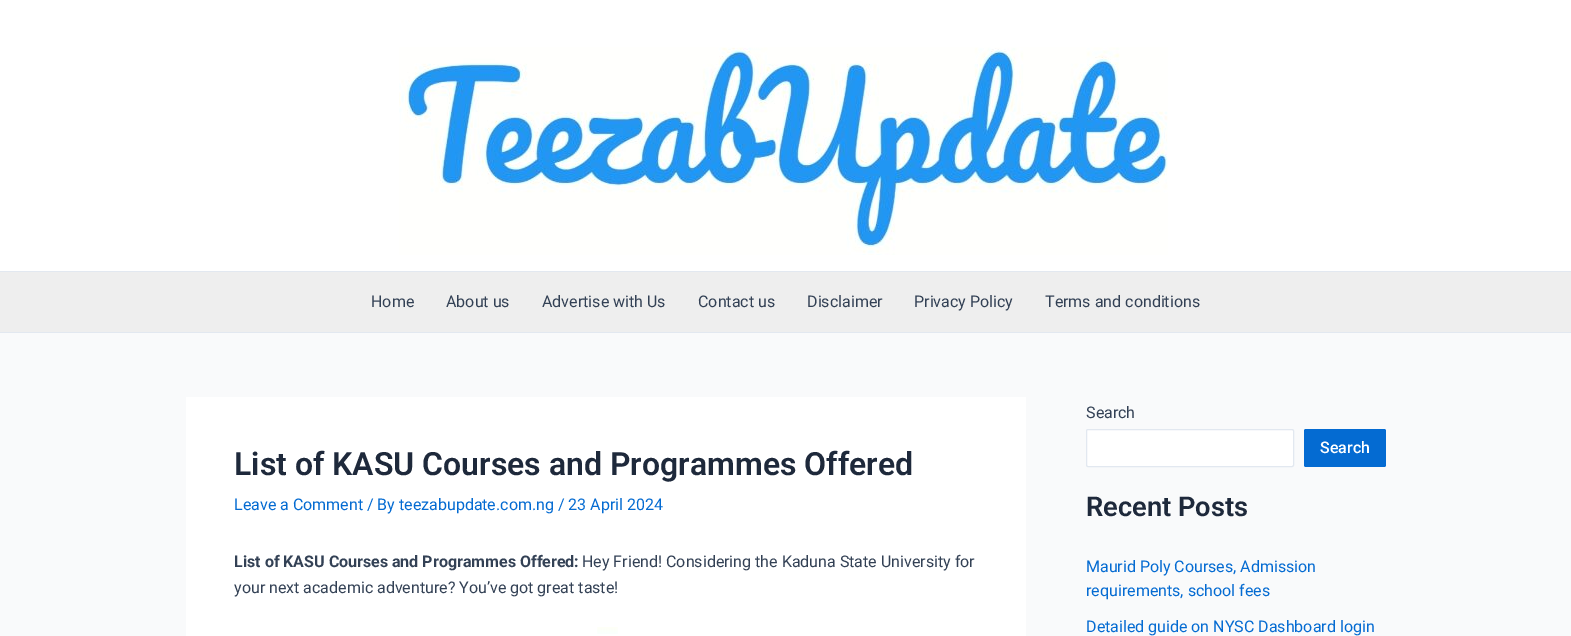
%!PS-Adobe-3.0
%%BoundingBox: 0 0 1571 636
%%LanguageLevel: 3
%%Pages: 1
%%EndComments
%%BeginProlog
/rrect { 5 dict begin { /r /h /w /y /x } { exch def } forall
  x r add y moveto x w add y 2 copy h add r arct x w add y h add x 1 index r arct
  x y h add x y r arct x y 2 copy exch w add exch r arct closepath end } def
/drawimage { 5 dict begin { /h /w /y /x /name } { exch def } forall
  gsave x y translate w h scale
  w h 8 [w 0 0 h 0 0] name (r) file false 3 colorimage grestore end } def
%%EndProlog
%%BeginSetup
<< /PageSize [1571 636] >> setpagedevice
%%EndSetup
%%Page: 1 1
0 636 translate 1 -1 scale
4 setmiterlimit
0.976 0.98 0.984 setrgbcolor
0 0 1571 636 rectfill
1 setgray
0 0 1571 271 rectfill
0.886 0.91 0.941 setrgbcolor
0 271 1571 1 rectfill
(images/1.raw) 399 47 769 208 drawimage
0.933 setgray
0 272 1571 60 rectfill
0.886 0.91 0.941 setrgbcolor
0 332 1571 1 rectfill
1 setgray
186 397 840 239 rectfill
(images/2.raw) 597 627 21 7 drawimage
1086.5 429.5 207 37 1.5 rrect gsave fill grestore
0.886 0.91 0.941 setrgbcolor
stroke
0.016 0.42 0.824 setrgbcolor
1304 429 82 38 2 rrect fill
/Roboto-Regular [16 0 0 -16 0 0] selectfont
0.2 0.255 0.333 setrgbcolor
371 307 moveto (Home) show
446 307 moveto (About us) show
542 307 moveto (Advertise with Us) show
698 307 moveto (Contact us) show
807 307 moveto (Disclaimer) show
914 307 moveto (Privacy Policy) show
1045 307 moveto (Terms and conditions) show
/Roboto-SemiBold [32 0 0 -32 0 0] selectfont
0.118 0.161 0.231 setrgbcolor
234 475 moveto (List of KASU Courses and Programmes Offered) show
/Roboto-Regular [16 0 0 -16 0 0] selectfont
0.016 0.42 0.824 setrgbcolor
234 510 moveto (Leave a Comment / By teezabupdate.com.ng / 23 April 2024) show
/Roboto-Bold [16 0 0 -16 0 0] selectfont
0.2 0.255 0.333 setrgbcolor
234 567 moveto (List of KASU Courses and Programmes Offered:) show
/Roboto-Regular [16 0 0 -16 0 0] selectfont
582 567 moveto (Hey Friend! Considering the Kaduna State University for) show
234 593 moveto (your next academic adventure? You’ve got great taste!) show
1086 418 moveto (Search) show
/Roboto-Medium [16 0 0 -16 0 0] selectfont
1 setgray
1320 453 moveto (Search) show
/Roboto-SemiBold [27.25 0 0 -27.25 0 0] selectfont
0.118 0.161 0.231 setrgbcolor
1086 516 moveto (Recent Posts) show
/Roboto-Regular [16 0 0 -16 0 0] selectfont
0.016 0.42 0.824 setrgbcolor
1086 572 moveto (Maurid Poly Courses, Admission) show
1086 596 moveto (requirements, school fees) show
1086 632 moveto (Detailed guide on NYSC Dashboard login) show
showpage
%%EOF
